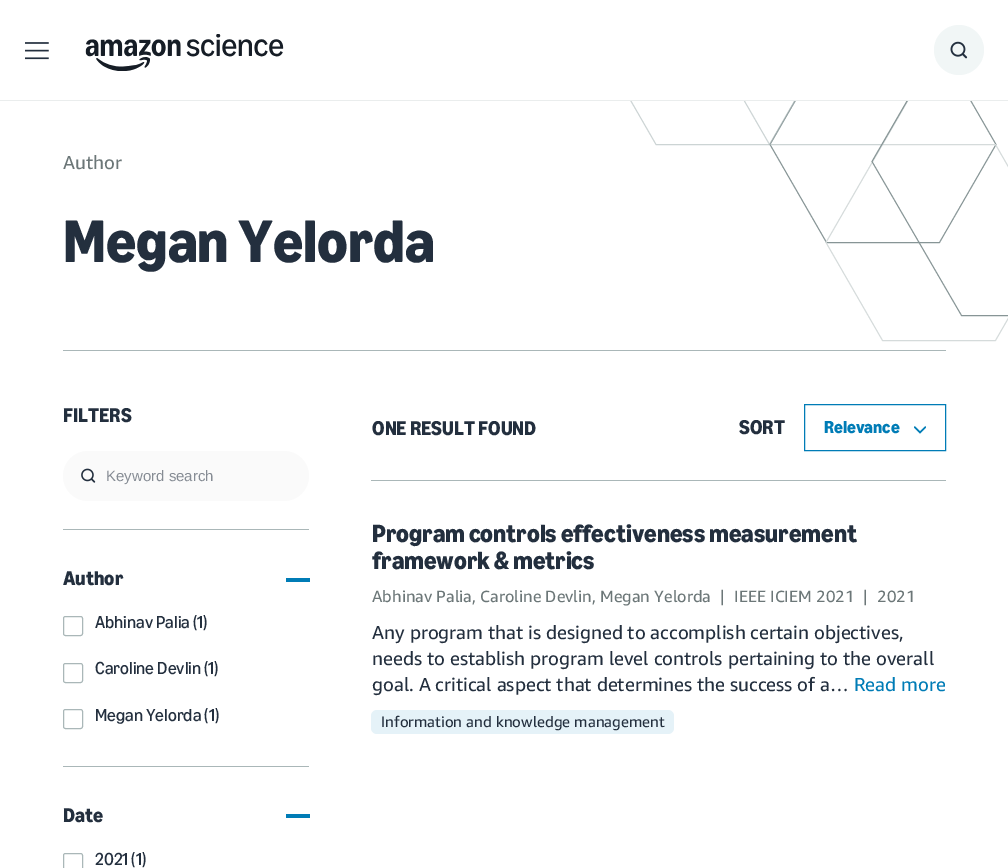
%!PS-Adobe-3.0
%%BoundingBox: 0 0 1008 868
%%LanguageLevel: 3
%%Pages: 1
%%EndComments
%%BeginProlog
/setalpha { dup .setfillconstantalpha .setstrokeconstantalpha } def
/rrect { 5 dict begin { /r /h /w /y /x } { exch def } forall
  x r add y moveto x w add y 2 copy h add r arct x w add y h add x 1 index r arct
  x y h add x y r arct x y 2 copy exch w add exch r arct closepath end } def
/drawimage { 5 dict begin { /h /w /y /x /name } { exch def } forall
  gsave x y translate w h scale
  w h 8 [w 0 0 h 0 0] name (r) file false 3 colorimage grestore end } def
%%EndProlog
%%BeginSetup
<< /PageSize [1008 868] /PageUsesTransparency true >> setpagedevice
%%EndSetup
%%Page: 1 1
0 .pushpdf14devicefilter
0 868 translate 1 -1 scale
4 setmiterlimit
1 setgray
0 0 1008 868 rectfill
0.918 0.929 0.929 setrgbcolor
0 100 1008 1 rectfill
(images/1.raw) 25 42 24 18 drawimage
(images/2.raw) 85 34 199 37 drawimage
0.945 0.965 0.965 setrgbcolor
newpath 959 50 25 0 360 arc closepath fill
(images/3.raw) 950 41 18 18 drawimage
gsave
599 101 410 240 rectclip
0.529 0.584 0.588 setrgbcolor
0.9 setlinewidth
newpath 826.5 46.5 moveto 939.5 46.5 lineto 996 144.5 lineto 939.5 242.5 lineto 826.5 242.5 lineto 770 144.5 lineto closepath stroke
grestore
0.835 0.859 0.859 setrgbcolor
0.9 setlinewidth
newpath 882.5 144.5 moveto 995.5 144.5 lineto 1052 242.5 lineto 995.5 340.5 lineto 882.5 340.5 lineto 826 242.5 lineto closepath stroke
gsave
599 101 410 240 rectclip
0.6 setalpha
0.667 0.718 0.722 setrgbcolor
newpath 656 -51.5 moveto 769.5 -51.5 lineto 826 46.5 lineto 769.5 144.5 lineto 656 144.5 lineto 599.5 46.5 lineto closepath stroke
newpath 769.5 -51.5 moveto 882.5 -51.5 lineto 939 46.5 lineto 882.5 144.5 lineto 769.5 144.5 lineto 713 46.5 lineto closepath stroke
1 setalpha
0.529 0.584 0.588 setrgbcolor
newpath 961.5 7 moveto 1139.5 7 lineto 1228.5 161.5 lineto 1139.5 315.5 lineto 961.5 315.5 lineto 872 161.5 lineto closepath stroke
grestore
0.667 0.718 0.722 setrgbcolor
63 350 883 1 rectfill
0.98 setgray
63 451 246 50 25 rrect fill
(images/4.raw) 81 468 15 15 drawimage
0.667 0.718 0.722 setrgbcolor
63 529 246 1 rectfill
0 0.486 0.714 setrgbcolor
286 578 24 4 rectfill
0.667 0.718 0.722 setrgbcolor
1 setlinewidth
63.5 616.5 19 19 2 rrect stroke
63.5 663.5 19 19 2 rrect stroke
63.5 709.5 19 19 2 rrect stroke
63 766 246 1 rectfill
0 0.486 0.714 setrgbcolor
286 814 24 4 rectfill
0.667 0.718 0.722 setrgbcolor
63.5 853.5 19 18 2 rrect stroke
371 480 575 1 rectfill
(images/5.raw) 914 426 12 8 drawimage
0 0.486 0.714 setrgbcolor
804.5 404.5 141 46 rectstroke
0.898 0.949 0.973 setrgbcolor
371 710 303 24 6 rrect fill
/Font-Regular [18.75 0 0 -18.75 0 0] selectfont
0.424 0.467 0.471 setrgbcolor
63 169 moveto (Author) show
/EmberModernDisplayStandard-Bold [60 0 0 -60 0 0] selectfont
0.137 0.184 0.243 setrgbcolor
63 262 moveto (Megan Yelorda) show
/EmberModernDisplayStandard-Bold [20 0 0 -20 0 0] selectfont
63 422 moveto (FILTERS) show
/LiberationSans-Regular [15 0 0 -15 0 0] selectfont
0.525 0.549 0.58 setrgbcolor
106 481 moveto (Keyword search) show
/EmberModernDisplayStandard-Bold [20 0 0 -20 0 0] selectfont
0.137 0.184 0.243 setrgbcolor
63 585 moveto (Author) show
/EmberModernDisplayStandard-Regular [17.5 0 0 -17.5 0 0] selectfont
95 628 moveto (Abhinav Palia \(1\)) show
95 674 moveto (Caroline Devlin \(1\)) show
95 721 moveto (Megan Yelorda \(1\)) show
/EmberModernDisplayStandard-Bold [20 0 0 -20 0 0] selectfont
63 822 moveto (Date) show
/EmberModernDisplayStandard-Regular [17.5 0 0 -17.5 0 0] selectfont
95 865 moveto (2021 \(1\)) show
/EmberModernDisplayStandard-Bold [20 0 0 -20 0 0] selectfont
372 435 moveto (ONE RESULT FOUND) show
739 434 moveto (SORT) show
/EmberModernDisplayStandard-Bold [17.5 0 0 -17.5 0 0] selectfont
0 0.486 0.714 setrgbcolor
824 433 moveto (Relevance) show
/EmberModernDisplayStandard-Bold [25 0 0 -25 0 0] selectfont
0.137 0.184 0.243 setrgbcolor
372 542 moveto (Program controls effectiveness measurement) show
372 569 moveto (framework & metrics) show
/Font-Regular [16.25 0 0 -16.25 0 0] selectfont
0.424 0.467 0.471 setrgbcolor
372 602 moveto (Abhinav Palia, Caroline Devlin, Megan Yelorda) show
720 602 moveto (|) show
734 602 moveto (IEEE ICIEM 2021) show
863 602 moveto (|) show
877 602 moveto (2021) show
/Font-Regular [18.75 0 0 -18.75 0 0] selectfont
0.137 0.184 0.243 setrgbcolor
372 639 moveto (Any program that is designed to accomplish certain objectives,) show
372 665 moveto (needs to establish program level controls pertaining to the overall) show
372 691 moveto (goal. A critical aspect that determines the success of a…) show
0 0.486 0.714 setrgbcolor
854 691 moveto (Read more) show
/Font-Regular [15 0 0 -15 0 0] selectfont
0.137 0.184 0.243 setrgbcolor
381 727 moveto (Information and knowledge management) show
.poppdf14devicefilter showpage
%%EOF
